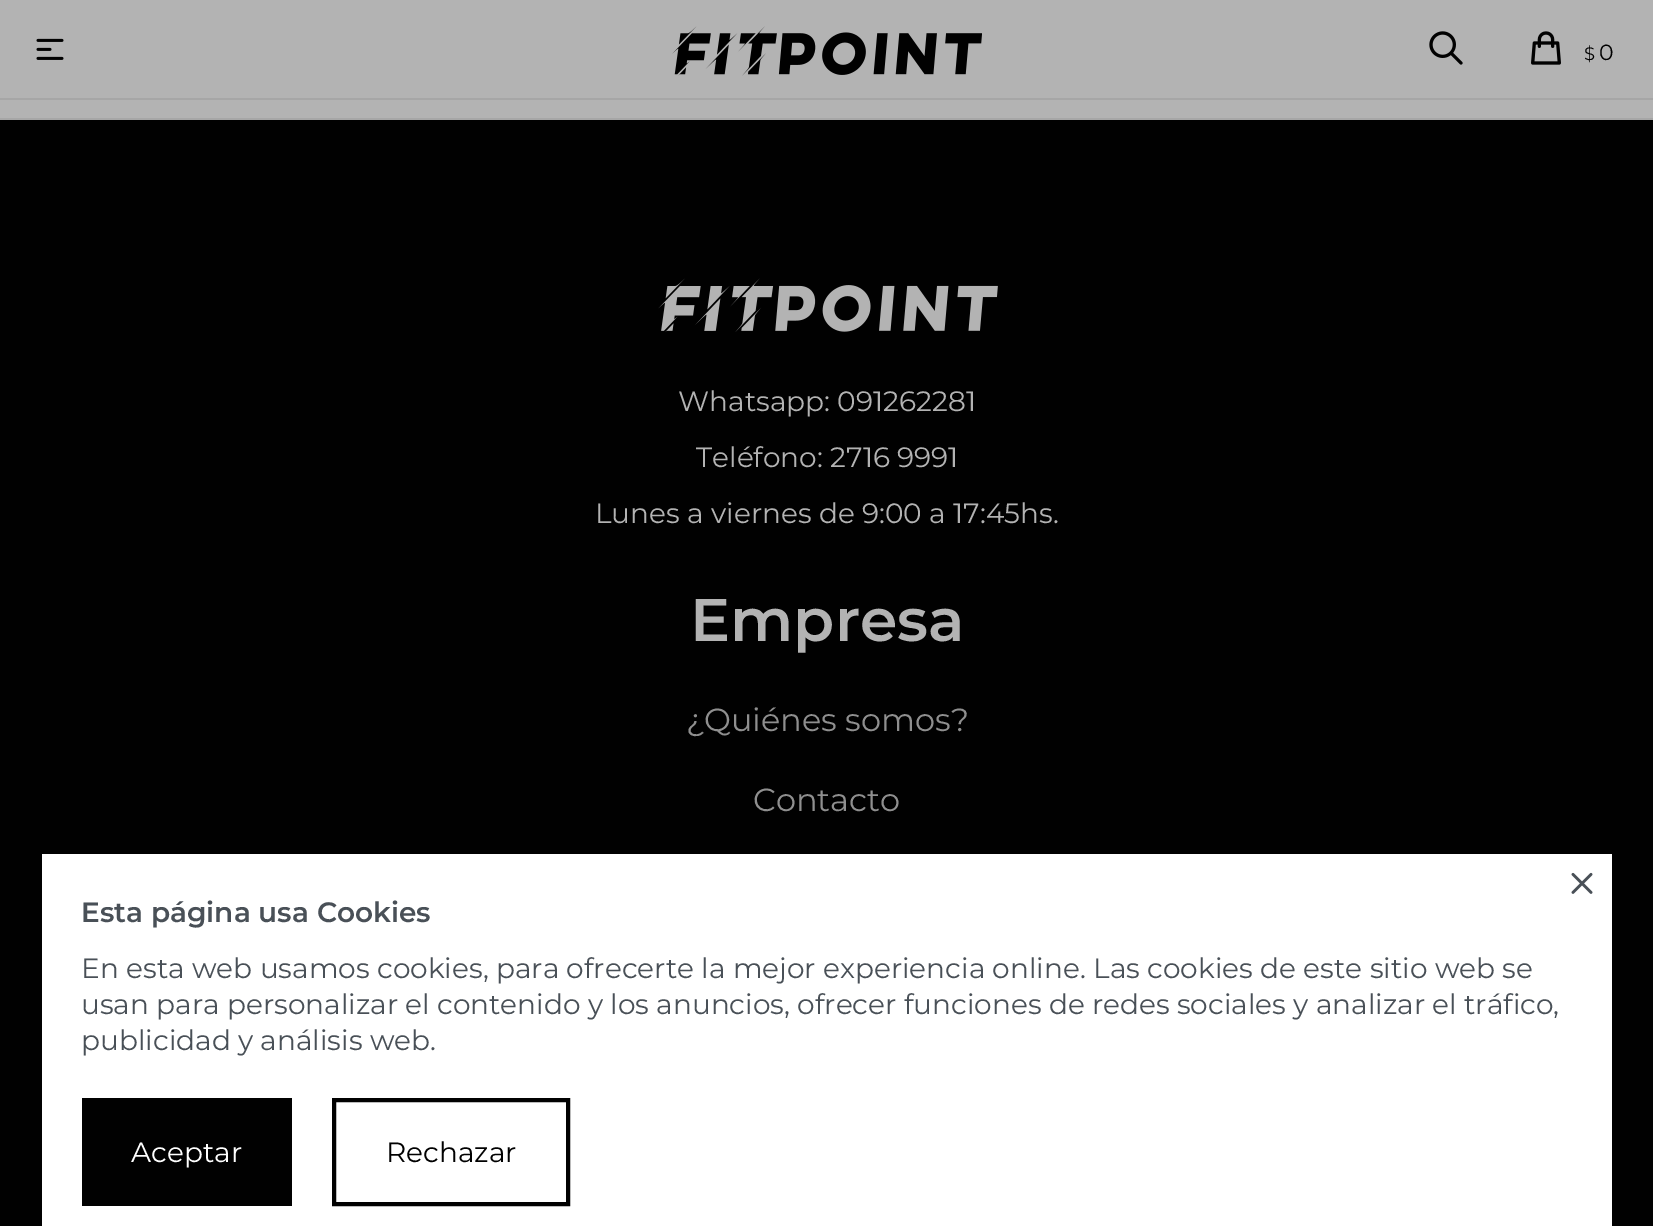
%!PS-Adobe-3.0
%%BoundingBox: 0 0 1653 1226
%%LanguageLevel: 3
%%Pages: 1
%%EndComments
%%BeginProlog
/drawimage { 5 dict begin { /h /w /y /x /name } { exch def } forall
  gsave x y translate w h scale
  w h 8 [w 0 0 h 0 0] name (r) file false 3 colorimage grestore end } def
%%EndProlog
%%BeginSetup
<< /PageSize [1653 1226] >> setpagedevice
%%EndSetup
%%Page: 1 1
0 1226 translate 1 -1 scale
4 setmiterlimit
0.702 setgray
0 0 1653 1226 rectfill
(images/1.raw) 36 38 28 22 drawimage
(images/2.raw) 672 26 310 50 drawimage
(images/3.raw) 1429 31 34 34 drawimage
(images/4.raw) 1531 31 30 34 drawimage
0.651 setgray
0 98 1653 2 rectfill
0.004 setgray
0 120 1653 1106 rectfill
0.651 setgray
0 118 1653 2 rectfill
(images/5.raw) 658 278 340 54 drawimage
1 setgray
42 854 1570 372 rectfill
(images/6.raw) 1571 872 22 22 drawimage
0.004 setgray
82 1098 210 108 rectfill
4 setlinewidth
334 1100 234 104 rectstroke
/Montserrat-Regular [18 0 0 -18 0 0] selectfont
1584 60 moveto ($) show
/Montserrat-Regular [22 0 0 -22 0 0] selectfont
1599 60 moveto (0) show
/Montserrat-Regular [28 0 0 -28 0 0] selectfont
0.702 setgray
678 411 moveto (Whatsapp: 091262281) show
696 467 moveto (Teléfono: 2716 9991) show
595 523 moveto (Lunes a viernes de 9:00 a 17:45hs.) show
/Montserrat-SemiBold [60 0 0 -60 0 0] selectfont
690 641 moveto (Empresa) show
/Montserrat-Regular [32 0 0 -32 0 0] selectfont
0.561 setgray
686 731 moveto (¿Quiénes somos?) show
753 811 moveto (Contacto) show
/Montserrat-SemiBold [28 0 0 -28 0 0] selectfont
0.286 0.314 0.341 setrgbcolor
81 922 moveto (Esta página usa Cookies) show
/Montserrat-Regular [28 0 0 -28 0 0] selectfont
81 978 moveto (En esta web usamos cookies, para ofrecerte la mejor experiencia online. Las cookies de este sitio web se) show
81 1014 moveto (usan para personalizar el contenido y los anuncios, ofrecer funciones de redes sociales y analizar el tráfico,) show
81 1050 moveto (publicidad y análisis web.) show
1 setgray
131 1162 moveto (Aceptar) show
0.004 setgray
386 1162 moveto (Rechazar) show
showpage
%%EOF
